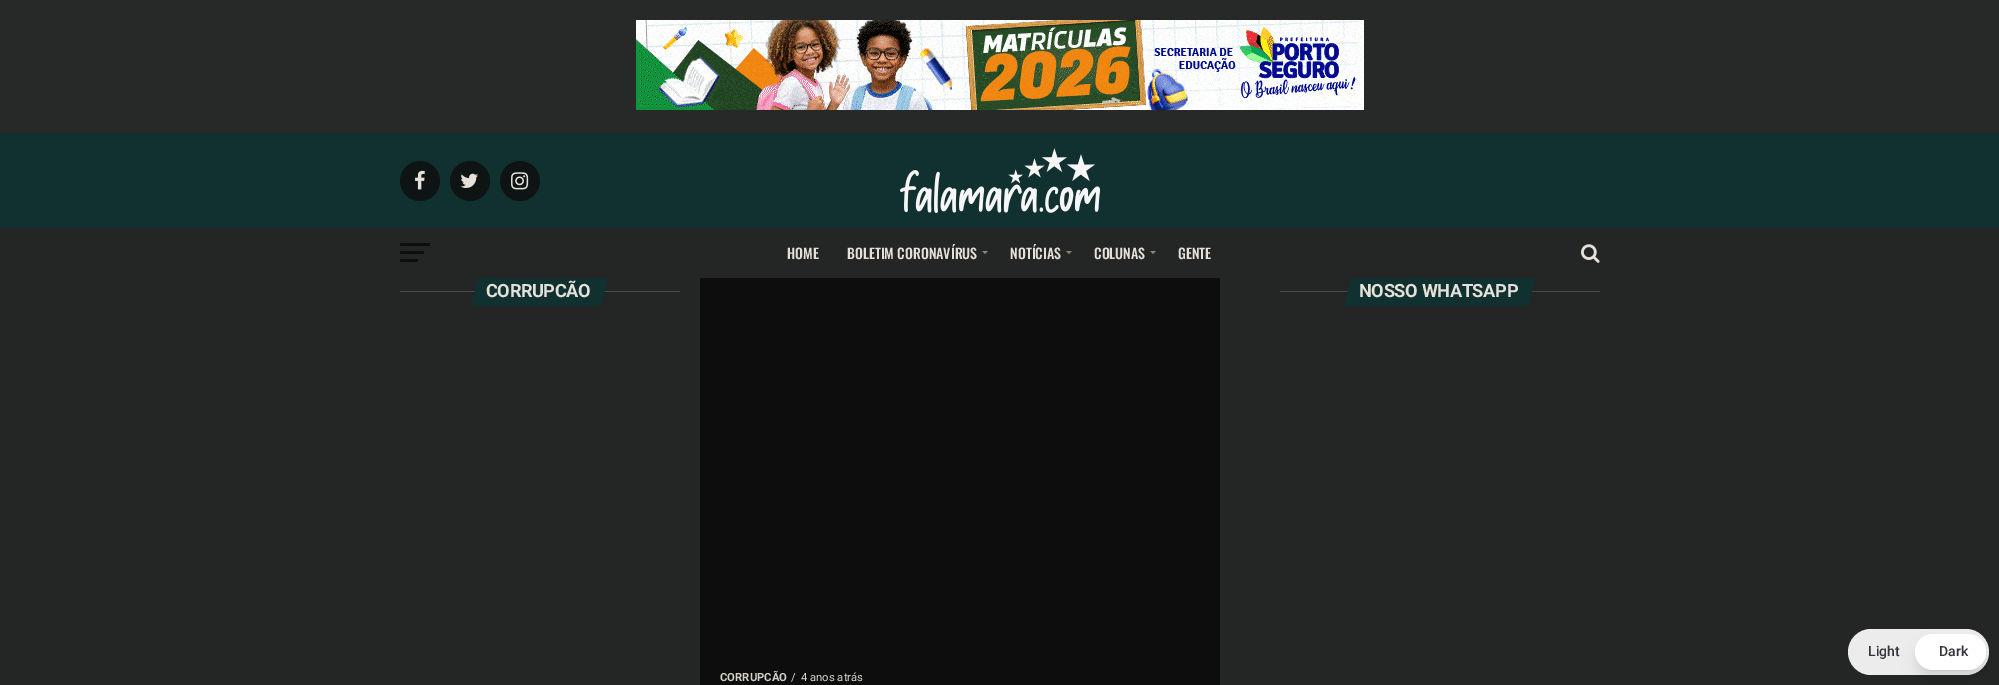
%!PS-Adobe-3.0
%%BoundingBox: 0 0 1999 685
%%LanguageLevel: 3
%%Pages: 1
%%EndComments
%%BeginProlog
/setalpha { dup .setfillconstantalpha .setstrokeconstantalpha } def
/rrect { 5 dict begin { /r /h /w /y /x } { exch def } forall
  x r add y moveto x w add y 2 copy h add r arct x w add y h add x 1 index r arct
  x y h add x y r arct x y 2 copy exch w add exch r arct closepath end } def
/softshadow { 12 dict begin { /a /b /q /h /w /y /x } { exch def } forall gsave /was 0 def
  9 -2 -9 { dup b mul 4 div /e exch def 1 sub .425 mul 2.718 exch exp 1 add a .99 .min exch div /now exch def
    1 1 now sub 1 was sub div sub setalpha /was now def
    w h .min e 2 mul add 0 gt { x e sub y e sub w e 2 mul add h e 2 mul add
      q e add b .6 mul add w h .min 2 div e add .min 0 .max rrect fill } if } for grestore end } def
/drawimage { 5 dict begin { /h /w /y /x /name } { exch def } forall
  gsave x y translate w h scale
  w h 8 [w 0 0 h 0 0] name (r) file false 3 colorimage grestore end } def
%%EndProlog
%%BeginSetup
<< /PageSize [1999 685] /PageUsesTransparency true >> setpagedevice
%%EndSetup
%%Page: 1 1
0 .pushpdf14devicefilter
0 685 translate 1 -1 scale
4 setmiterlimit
0.141 0.145 0.145 setrgbcolor
0 0 1999 685 rectfill
0.153 0.161 0.157 setrgbcolor
0 0 1999 133 rectfill
(images/1.raw) 636 20 728 90 drawimage
0.067 0.192 0.188 setrgbcolor
0 133 1999 95 rectfill
0.055 0.078 0.078 setrgbcolor
newpath 420 181 20 0 360 arc closepath fill
(images/2.raw) 415 170 10 20 drawimage
newpath 470 181 20 0 360 arc closepath fill
(images/3.raw) 460 173 18 15 drawimage
newpath 520 181 20 0 360 arc closepath fill
(images/4.raw) 511 172 18 18 drawimage
(images/5.raw) 900 148 200 65 drawimage
0.051 setgray
400 243 30 3 1.5 rrect fill
400 251 24 3 1.5 rrect fill
400 259 18 3 1.5 rrect fill
0.561 0.518 0.459 setrgbcolor
newpath 982 251 moveto 988 251 lineto 985 254 lineto closepath fill
newpath 1066 251 moveto 1072 251 lineto 1069 254 lineto closepath fill
newpath 1150 251 moveto 1156 251 lineto 1153 254 lineto closepath fill
(images/6.raw) 1581 244 19 19 drawimage
0.286 0.298 0.302 setrgbcolor
400 291 280 1 rectfill
0.067 0.192 0.188 setrgbcolor
newpath 478 278 moveto 608 278 lineto 601 306 lineto 471 306 lineto closepath fill
0.051 setgray
700 278 520 407 rectfill
0.286 0.298 0.302 setrgbcolor
1280 291 320 1 rectfill
0.067 0.192 0.188 setrgbcolor
newpath 1351 278 moveto 1535 278 lineto 1528 306 lineto 1344 306 lineto closepath fill
0.925 setgray
1848 629 141 46 23 rrect fill
0 setgray
1919 642 63 28 14 3 0.1 softshadow
1918 647 65 30 15 7.5 0.1 softshadow
1 setgray
1915 634 71 36 18 rrect fill
/Oswald-Medium [14 0 0 -14 0 0] selectfont
0.898 0.878 0.847 setrgbcolor
787 259 moveto (HOME) show
847 259 moveto (BOLETIM CORONAVÍRUS) show
1010 259 moveto (NOTÍCIAS) show
1094 259 moveto (COLUNAS) show
1178 259 moveto (GENTE) show
/Roboto-Bold [18.25 0 0 -18.25 0 0] selectfont
486 297 moveto -0.5 0 (CORRUPCÃO) ashow
/Roboto-Bold [11.25 0 0 -11.25 0 0] selectfont
0.839 0.82 0.776 setrgbcolor
720 681 moveto (CORRUPCÃO) show
/Roboto-Regular [11.25 0 0 -11.25 0 0] selectfont
0.859 0.835 0.8 setrgbcolor
791 681 moveto (/) show
801 681 moveto (4 anos atrás) show
/Roboto-Bold [18.25 0 0 -18.25 0 0] selectfont
0.898 0.878 0.847 setrgbcolor
1359 297 moveto -0.4 0 (NOSSO WHATSAPP) ashow
/Roboto-Medium [14 0 0 -14 0 0] selectfont
0.208 0.208 0.231 setrgbcolor
1868 656 moveto (Light) show
1939 656 moveto (Dark) show
.poppdf14devicefilter showpage
%%EOF
